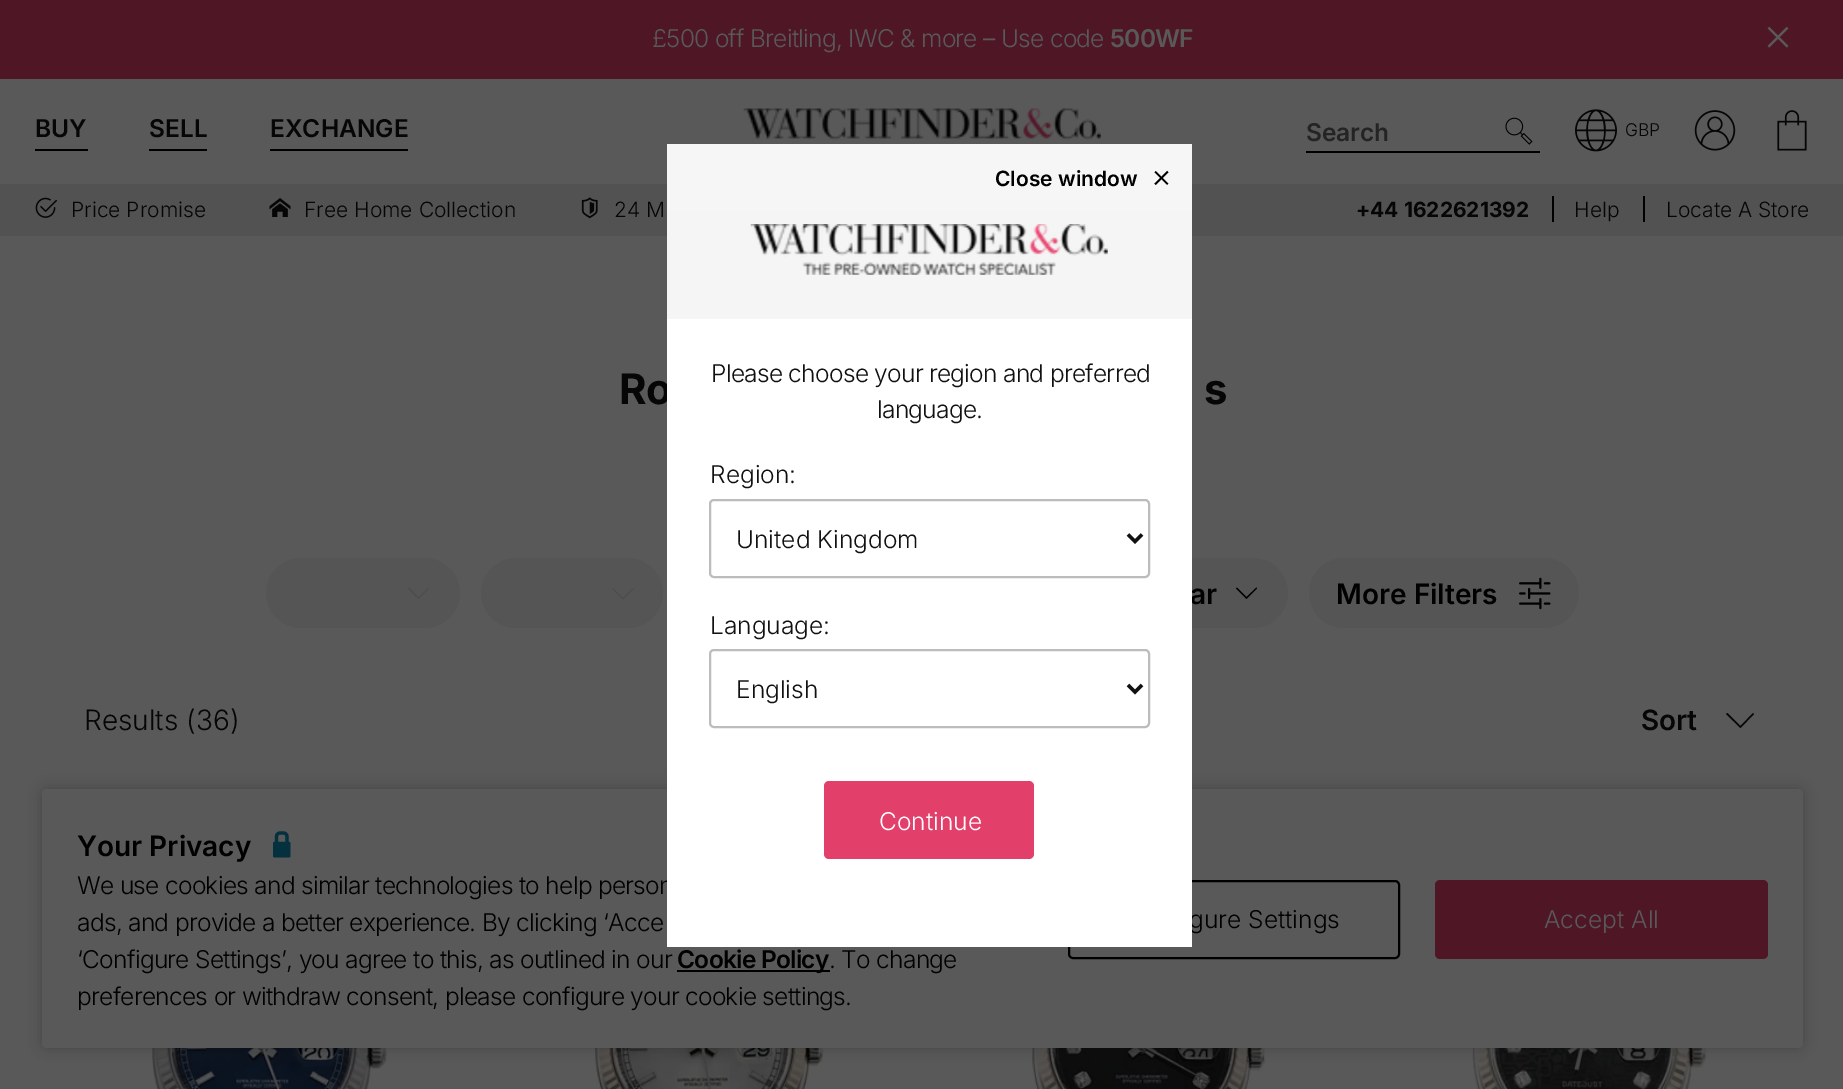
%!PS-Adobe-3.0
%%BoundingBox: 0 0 1843 1089
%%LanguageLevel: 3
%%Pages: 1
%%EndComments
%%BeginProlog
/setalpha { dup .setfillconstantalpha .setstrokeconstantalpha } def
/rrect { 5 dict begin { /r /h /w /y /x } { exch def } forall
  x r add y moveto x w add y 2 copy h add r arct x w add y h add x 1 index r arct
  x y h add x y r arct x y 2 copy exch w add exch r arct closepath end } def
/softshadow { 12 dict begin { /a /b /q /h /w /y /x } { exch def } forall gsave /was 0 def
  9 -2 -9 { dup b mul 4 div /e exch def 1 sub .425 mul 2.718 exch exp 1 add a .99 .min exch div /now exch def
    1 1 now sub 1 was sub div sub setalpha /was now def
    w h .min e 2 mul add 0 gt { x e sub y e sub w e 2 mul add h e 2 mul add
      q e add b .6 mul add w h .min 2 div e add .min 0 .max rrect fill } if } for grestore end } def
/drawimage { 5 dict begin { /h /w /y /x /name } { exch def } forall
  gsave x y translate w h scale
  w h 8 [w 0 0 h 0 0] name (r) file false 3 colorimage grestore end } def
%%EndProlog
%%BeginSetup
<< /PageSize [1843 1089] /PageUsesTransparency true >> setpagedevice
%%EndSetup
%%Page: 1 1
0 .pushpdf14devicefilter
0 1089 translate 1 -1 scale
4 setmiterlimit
0.31 0.086 0.145 setrgbcolor
0 0 1843 1089 rectfill
(images/1.raw) 1767 26 22 22 drawimage
0.349 setgray
0 79 1843 105 rectfill
0 setgray
35 149 53 2 rectfill
149 149 58 2 rectfill
270 149 138 2 rectfill
(images/2.raw) 743 108 358 32 drawimage
1306 151 234 2 rectfill
(images/3.raw) 1505 117 28 28 drawimage
(images/4.raw) 1575 109 42 43 drawimage
(images/5.raw) 1694 110 42 41 drawimage
(images/6.raw) 1777 110 30 41 drawimage
0.322 setgray
0 184 1843 52 rectfill
(images/7.raw) 35 197 22 21 drawimage
(images/8.raw) 269 198 22 19 drawimage
(images/9.raw) 581 197 17 22 drawimage
0 setgray
1552 196 2 26 rectfill
1643 196 2 26 rectfill
0.965 setgray
667 144 525 66 rectfill
0.349 setgray
0 236 1843 853 rectfill
0.961 setgray
667 210 525 109 rectfill
(images/10.raw) 750 224 358 51 drawimage
0.333 setgray
266 558 194 70 35 rrect fill
0.298 setgray
newpath 418.5 599 moveto 429 588.5 lineto 428.5 588 lineto 418.5 597.5 lineto 409 587.5 lineto 408 588.5 lineto closepath fill
0.333 setgray
481 558 182 70 35 rrect fill
0.298 setgray
newpath 623 599.5 moveto 633.5 589 lineto 632.5 588.5 lineto 623 598 lineto 613 588 lineto 612.5 589 lineto closepath fill
0.333 setgray
1125 558 163 70 35 rrect fill
0 setgray
newpath 1246.5 599 moveto 1257 588.5 lineto 1256.5 587.5 lineto 1246.5 597 lineto 1237 587.5 lineto 1236 588.5 lineto closepath fill
0.333 setgray
1309 558 270 70 35 rrect fill
(images/11.raw) 1519 577 32 33 drawimage
0.024 setgray
newpath 1740.5 728 moveto 1754 714 lineto 1753 713 lineto 1740.5 726 lineto 1727.5 713 lineto 1726 714 lineto closepath fill
(images/12.raw) 150 1048 237 41 drawimage
(images/13.raw) 594 1048 230 41 drawimage
(images/14.raw) 1030 1048 236 41 drawimage
(images/15.raw) 1472 1048 235 41 drawimage
0 setgray
42 789 1761 259 5 7 0.2 softshadow
0.349 setgray
42 789 1761 259 5 rrect fill
(images/16.raw) 273 831 18 27 drawimage
0 setgray
677 970 153 2 rectfill
2 setlinewidth
1069 881 330 77 4 rrect stroke
0.31 0.086 0.145 setrgbcolor
1435 880 333 79 5 rrect fill
/Inter-Light [24.5 0 0 -24.5 0 0] selectfont
0.349 setgray
652 47 moveto -0.73 0 (£500 off Breitling, IWC & more – Use code) ashow
/Inter-SemiBold [24.5 0 0 -24.5 0 0] selectfont
1110 47 moveto -0.73 0 (500WF) ashow
0.024 setgray
35 137 moveto (BUY) show
149 137 moveto (SELL) show
270 137 moveto (EXCHANGE) show
0.141 setgray
1306 141 moveto (Search) show
/Inter-Light [17.5 0 0 -17.5 0 0] selectfont
0.024 setgray
1625 136 moveto (GBP) show
/Inter-Light [21 0 0 -21 0 0] selectfont
71 217 moveto (Price Promise) show
304 217 moveto (Free Home Collection) show
614 217 moveto (24 M) show
/Inter-Bold [21 0 0 -21 0 0] selectfont
1356 217 moveto (+44 1622621392) show
/Inter-Light [21 0 0 -21 0 0] selectfont
1574 217 moveto (Help) show
1666 217 moveto (Locate A Store) show
/Inter-SemiBold [21 0 0 -21 0 0] selectfont
0 setgray
995 186 moveto (Close window) show
/Inter-Light [32 0 0 -32 0 0] selectfont
1151 187 moveto (×) show
/Inter-Bold [42 0 0 -42 0 0] selectfont
0.024 setgray
619 404 moveto -1 0 (Ro) ashow
1204 404 moveto -1 0 (s) ashow
/Inter-SemiBold [28 0 0 -28 0 0] selectfont
0 setgray
1190 604 moveto (ar) show
1336 604 moveto (More Filters) show
/Inter-Light [28 0 0 -28 0 0] selectfont
0.024 setgray
84 730 moveto (Results \(36\)) show
/Inter-SemiBold [28 0 0 -28 0 0] selectfont
1641 730 moveto (Sort) show
0 setgray
77 856 moveto (Your Privacy) show
/Inter-Light [24.5 0 0 -24.5 0 0] selectfont
77 894 moveto -0.73 0 (We use cookies and similar technologies to help person) ashow
77 931 moveto -0.73 0 (ads, and provide a better experience. By clicking ‘Acce) ashow
77 968 moveto -0.73 0 (‘Configure Settings’, you agree to this, as outlined in our) ashow
/Inter-SemiBold [24.5 0 0 -24.5 0 0] selectfont
677 968 moveto -0.73 0 (Cookie Policy) ashow
/Inter-Light [24.5 0 0 -24.5 0 0] selectfont
829 968 moveto -0.73 0 (. To change) ashow
77 1005 moveto -0.73 0 (preferences or withdraw consent, please configure your cookie settings.) ashow
1189 928 moveto (gure Settings) show
1 setgray
667 319 525 628 rectfill
0.886 0.251 0.42 setrgbcolor
824 781 210 78 5 rrect fill
1 setgray
879 830 moveto (Continue) show
0.741 0.737 0.737 setrgbcolor
710 650 439 77 4 rrect stroke
0.067 setgray
736 698 moveto (English) show
710 634 moveto (Language:) show
0.741 0.737 0.737 setrgbcolor
710 500 439 77 4 rrect stroke
0.067 setgray
736 548 moveto (United Kingdom) show
710 483 moveto (Region:) show
877 418 moveto -0.73 0 (language.) ashow
711 382 moveto -0.73 0 (Please choose your region and preferred) ashow
3.5 setlinewidth
newpath 1128 685 moveto 1135 692 lineto 1142 685 lineto stroke
newpath 1128 534.5 moveto 1135 541.5 lineto 1142 534.5 lineto stroke
0.349 setgray
1544 928 moveto (Accept All) show
.poppdf14devicefilter showpage
%%EOF
